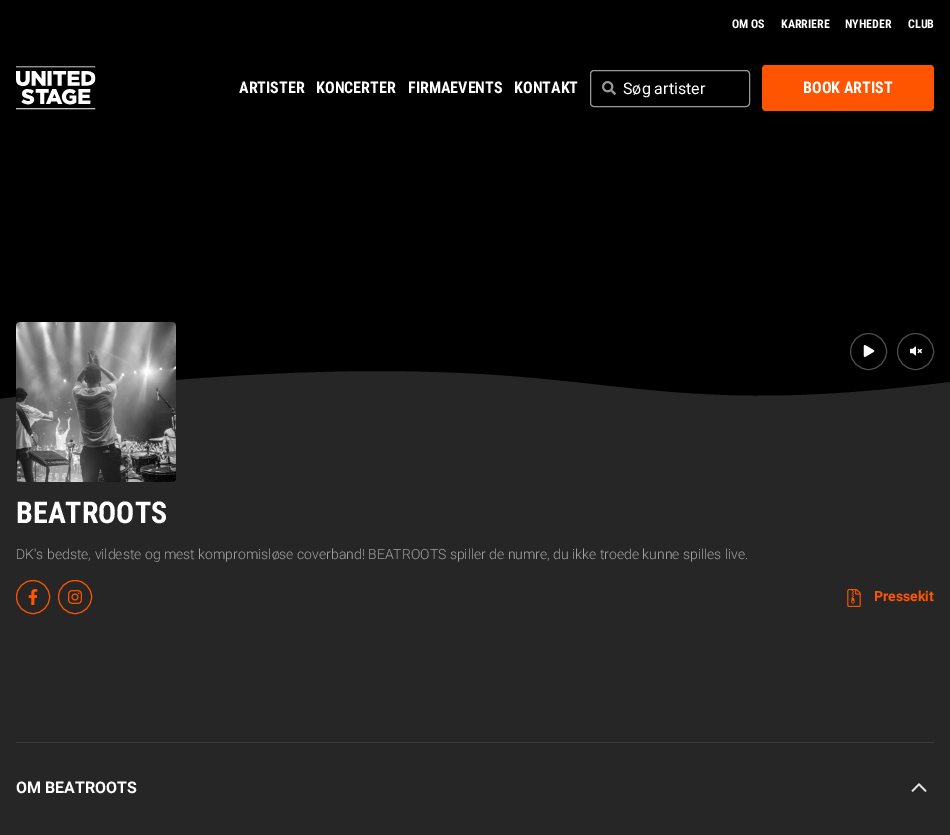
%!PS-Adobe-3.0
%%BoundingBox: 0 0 950 835
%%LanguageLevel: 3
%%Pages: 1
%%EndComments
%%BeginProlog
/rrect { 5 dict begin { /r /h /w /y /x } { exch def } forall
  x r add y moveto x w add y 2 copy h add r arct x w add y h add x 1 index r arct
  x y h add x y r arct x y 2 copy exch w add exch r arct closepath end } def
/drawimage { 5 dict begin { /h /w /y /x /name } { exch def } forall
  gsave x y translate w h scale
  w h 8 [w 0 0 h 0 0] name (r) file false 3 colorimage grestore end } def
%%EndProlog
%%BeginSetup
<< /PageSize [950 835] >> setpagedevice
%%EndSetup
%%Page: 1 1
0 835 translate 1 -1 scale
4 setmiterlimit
0.149 setgray
0 0 950 835 rectfill
0 setgray
0 0 950 399 rectfill
(images/1.raw) 16 66 80 44 drawimage
0.6 setgray
590.5 70.5 159 36 3.5 rrect stroke
(images/2.raw) 602 81 14 14 drawimage
1 0.333 0 setrgbcolor
762 65 172 46 4 rrect fill
0.302 setgray
newpath 868.5 351.5 18 0 360 arc closepath stroke
(images/3.raw) 863 345 12 12 drawimage
newpath 915.5 351.5 18 0 360 arc closepath stroke
(images/4.raw) 910 346 12 10 drawimage
gsave
0 371 950 47 rectclip
0.149 setgray
newpath 0 419 moveto 0 399 lineto 0 399 228 366 429 372 curveto 629 377 686 416 950 382 curveto 950 419 lineto closepath eofill
grestore
(images/5.raw) 16 322 160 160 drawimage
1 0.333 0 setrgbcolor
newpath 33 597 16.5 0 360 arc closepath stroke
(images/6.raw) 28 589 10 16 drawimage
newpath 75 597 16.5 0 360 arc closepath stroke
(images/7.raw) 68 590 14 14 drawimage
(images/8.raw) 847 589 14 18 drawimage
0.235 setgray
16 742 918 1 rectfill
(images/9.raw) 911 783 16 9 drawimage
/RobotoCondensed-Bold [12 0 0 -12 0 0] selectfont
1 setgray
732 28 moveto (OM OS) show
781 28 moveto (KARRIERE) show
845 28 moveto (NYHEDER) show
908 28 moveto (CLUB) show
/RobotoCondensed-Bold [16 0 0 -16 0 0] selectfont
239 93 moveto (ARTISTER) show
316 93 moveto (KONCERTER) show
408 93 moveto (FIRMAEVENTS) show
514 93 moveto (KONTAKT) show
/Roboto-Regular [16 0 0 -16 0 0] selectfont
623 94 moveto (Søg artister) show
/RobotoCondensed-Bold [16 0 0 -16 0 0] selectfont
803 93 moveto (BOOK ARTIST) show
/RobotoCondensed-Bold [30 0 0 -30 0 0] selectfont
16 523 moveto (BEATROOTS) show
/Roboto-Light [14 0 0 -14 0 0] selectfont
0.639 setgray
16 559 moveto (DK's bedste, vildeste og mest kompromisløse coverband! BEATROOTS spiller de numre, du ikke troede kunne spilles live.) show
/Roboto-Bold [14 0 0 -14 0 0] selectfont
1 0.333 0 setrgbcolor
874 601 moveto (Pressekit) show
/Roboto-Bold [16 0 0 -16 0 0] selectfont
1 setgray
16 793 moveto (OM BEATROOTS) show
showpage
%%EOF
